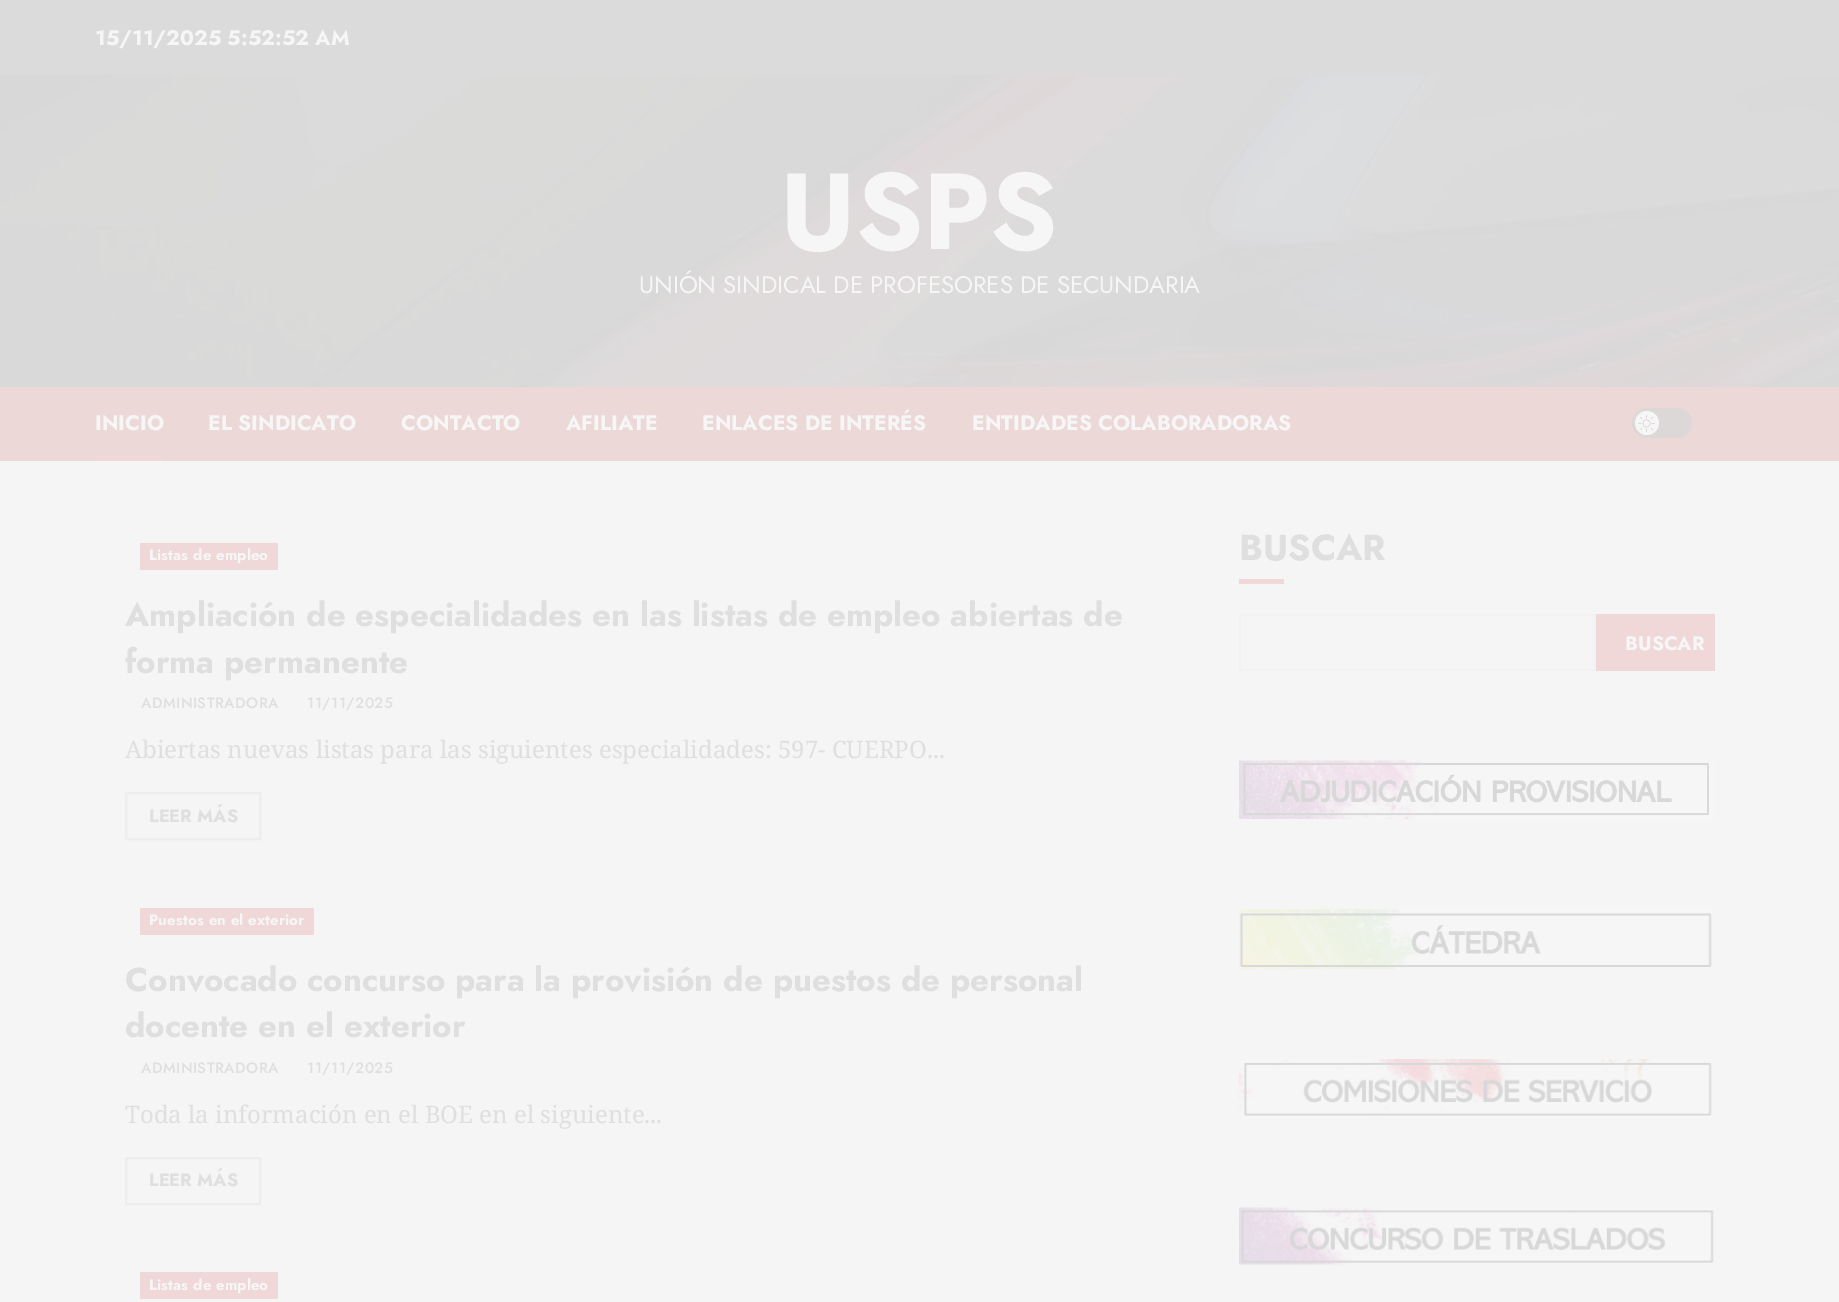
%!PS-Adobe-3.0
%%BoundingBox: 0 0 1839 1302
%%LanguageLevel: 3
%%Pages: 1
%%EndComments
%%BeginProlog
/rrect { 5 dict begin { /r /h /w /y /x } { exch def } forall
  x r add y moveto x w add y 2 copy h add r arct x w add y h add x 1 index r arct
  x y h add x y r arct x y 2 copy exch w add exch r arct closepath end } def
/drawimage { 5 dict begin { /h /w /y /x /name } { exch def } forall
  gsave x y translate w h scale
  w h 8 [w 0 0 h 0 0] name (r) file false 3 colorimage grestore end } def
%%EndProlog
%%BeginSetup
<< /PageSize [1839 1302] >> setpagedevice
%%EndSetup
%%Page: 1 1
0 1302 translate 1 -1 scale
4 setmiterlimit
0.961 setgray
0 0 1839 1302 rectfill
0.859 setgray
0 0 1839 75 rectfill
(images/1.raw) 0 75 1839 312 drawimage
0.929 0.847 0.847 setrgbcolor
0 387 1839 74 rectfill
0.941 0.847 0.847 setrgbcolor
95 456 69 5 rectfill
0.867 0.847 0.847 setrgbcolor
1632 408 60 30 15 rrect fill
0.965 setgray
newpath 1647 423 12 0 360 arc closepath fill
(images/2.raw) 1638 414 18 18 drawimage
0.941 0.847 0.847 setrgbcolor
140 543 138 27 rectfill
0.929 setgray
2 setlinewidth
126 793 134 46 rectstroke
0.941 0.847 0.847 setrgbcolor
140 908 174 27 rectfill
0.929 setgray
126 1158 134 46 rectstroke
0.941 0.847 0.847 setrgbcolor
140 1272 138 27 rectfill
1239 579 45 5 rectfill
0.949 setgray
1240 615 355 55 rectstroke
0.941 0.847 0.847 setrgbcolor
1596 614 119 57 rectfill
(images/3.raw) 1239 760 475 59 drawimage
(images/4.raw) 1239 909 473 60 drawimage
(images/5.raw) 1239 1059 473 59 drawimage
(images/6.raw) 1239 1207 475 58 drawimage
/Jost-Bold [21 0 0 -21 0 0] selectfont
0.965 setgray
95 45 moveto (15/11/2025 5:52:52 AM) show
/Jost-Bold [108 0 0 -108 0 0] selectfont
780 249 moveto (USPS) show
/Jost-Regular [24 0 0 -24 0 0] selectfont
639 293 moveto (UNIÓN SINDICAL DE PROFESORES DE SECUNDARIA) show
/Jost-Bold [21 0 0 -21 0 0] selectfont
95 430 moveto (INICIO) show
208 430 moveto (EL SINDICATO) show
401 430 moveto (CONTACTO) show
566 430 moveto (AFILIATE) show
702 430 moveto (ENLACES DE INTERÉS) show
972 430 moveto (ENTIDADES COLABORADORAS) show
/Jost-Bold [15 0 0 -15 0 0] selectfont
149 560 moveto 0.15 0 (Listas de empleo) ashow
/Jost-Bold [33 0 0 -33 0 0] selectfont
0.875 setgray
125 626 moveto (Ampliación de especialidades en las listas de empleo abiertas de) show
125 673 moveto (forma permanente) show
/Jost-Medium [15 0 0 -15 0 0] selectfont
141 708 moveto 0.5 0 (ADMINISTRADORA) ashow
307 708 moveto 0.5 0 (11/11/2025) ashow
/NotoSerif-Regular [24 0 0 -24 0 0] selectfont
125 758 moveto (Abiertas nuevas listas para las siguientes especialidades: 597- CUERPO...) show
/Jost-Bold [18 0 0 -18 0 0] selectfont
149 822 moveto (LEER MÁS) show
/Jost-Bold [15 0 0 -15 0 0] selectfont
0.965 setgray
149 925 moveto 0.15 0 (Puestos en el exterior) ashow
/Jost-Bold [33 0 0 -33 0 0] selectfont
0.875 setgray
125 991 moveto (Convocado concurso para la provisión de puestos de personal) show
125 1037 moveto (docente en el exterior) show
/Jost-Medium [15 0 0 -15 0 0] selectfont
141 1073 moveto 0.5 0 (ADMINISTRADORA) ashow
307 1073 moveto 0.5 0 (11/11/2025) ashow
/NotoSerif-Regular [24 0 0 -24 0 0] selectfont
125 1123 moveto (Toda la información en el BOE en el siguiente...) show
/Jost-Bold [18 0 0 -18 0 0] selectfont
149 1186 moveto (LEER MÁS) show
/Jost-Bold [15 0 0 -15 0 0] selectfont
0.965 setgray
149 1290 moveto 0.15 0 (Listas de empleo) ashow
/Jost-Bold [36 0 0 -36 0 0] selectfont
0.875 setgray
1239 560 moveto (BUSCAR) show
/Jost-Bold [19.5 0 0 -19.5 0 0] selectfont
0.965 setgray
1625 650 moveto (BUSCAR) show
showpage
%%EOF
